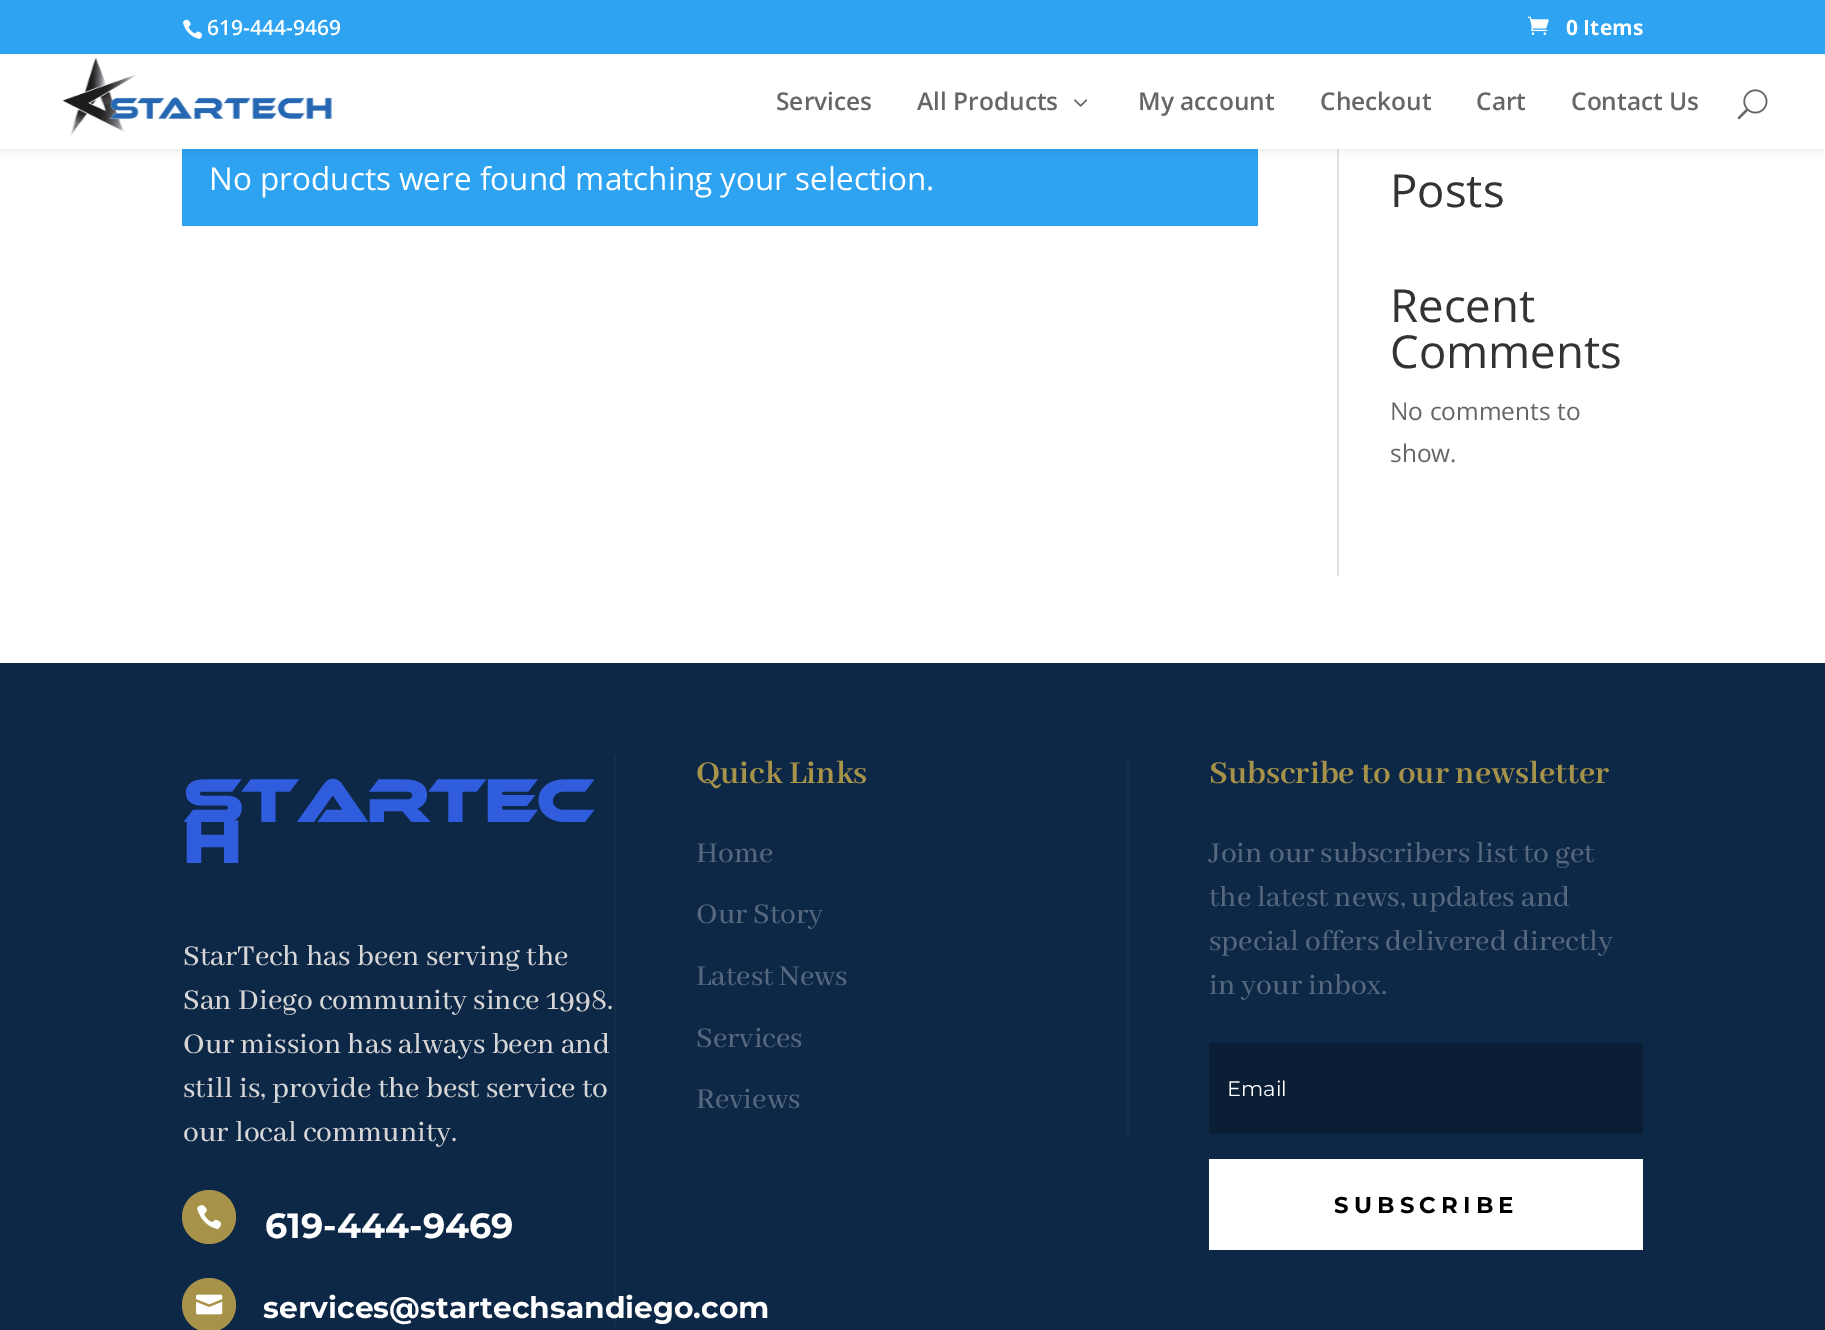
%!PS-Adobe-3.0
%%BoundingBox: 0 0 1825 1330
%%LanguageLevel: 3
%%Pages: 1
%%EndComments
%%BeginProlog
/setalpha { dup .setfillconstantalpha .setstrokeconstantalpha } def
/rrect { 5 dict begin { /r /h /w /y /x } { exch def } forall
  x r add y moveto x w add y 2 copy h add r arct x w add y h add x 1 index r arct
  x y h add x y r arct x y 2 copy exch w add exch r arct closepath end } def
/softshadow { 12 dict begin { /a /b /q /h /w /y /x } { exch def } forall gsave /was 0 def
  9 -2 -9 { dup b mul 4 div /e exch def 1 sub .425 mul 2.718 exch exp 1 add a .99 .min exch div /now exch def
    1 1 now sub 1 was sub div sub setalpha /was now def
    w h .min e 2 mul add 0 gt { x e sub y e sub w e 2 mul add h e 2 mul add
      q e add b .6 mul add w h .min 2 div e add .min 0 .max rrect fill } if } for grestore end } def
/drawimage { 5 dict begin { /h /w /y /x /name } { exch def } forall
  gsave x y translate w h scale
  w h 8 [w 0 0 h 0 0] name (r) file false 3 colorimage grestore end } def
%%EndProlog
%%BeginSetup
<< /PageSize [1825 1330] /PageUsesTransparency true >> setpagedevice
%%EndSetup
%%Page: 1 1
0 .pushpdf14devicefilter
0 1330 translate 1 -1 scale
4 setmiterlimit
1 setgray
0 0 1825 1330 rectfill
0.886 setgray
1337 149 2 427 rectfill
0.18 0.639 0.949 setrgbcolor
182 149 1076 77 rectfill
0 setgray
0 54 1825 95 0 6 0.1 softshadow
0.18 0.639 0.949 setrgbcolor
0 0 1825 54 rectfill
(images/1.raw) 182 19 21 20 drawimage
(images/2.raw) 1527 16 22 19 drawimage
1 setgray
0 54 1825 95 rectfill
(images/3.raw) 62 57 270 79 drawimage
(images/4.raw) 1074 99 14 8 drawimage
(images/5.raw) 1737 89 31 31 drawimage
0.051 0.153 0.275 setrgbcolor
0 663 1825 667 rectfill
0.078 0.176 0.298 setrgbcolor
614 756 2 574 rectfill
0.651 0.576 0.286 setrgbcolor
newpath 209 1217 27 0 360 arc closepath fill
(images/6.raw) 197 1205 25 24 drawimage
newpath 209 1305 27 0 360 arc closepath fill
(images/7.raw) 196 1294 27 21 drawimage
0.078 0.176 0.298 setrgbcolor
1127 756 2 383 rectfill
0.039 0.118 0.208 setrgbcolor
1209 1043 434 91 rectfill
1 setgray
1209 1159 434 91 rectfill
/OpenSans-SemiBold [21 0 0 -21 0 0] selectfont
207 35 moveto (619-444-9469) show
/OpenSans-Bold [21 0 0 -21 0 0] selectfont
1566 35 moveto (0 Items) show
/OpenSans-SemiBold [24.5 0 0 -24.5 0 0] selectfont
0.4 setgray
776 110 moveto (Services) show
917 110 moveto (All Products) show
1138 110 moveto (My account) show
1320 110 moveto (Checkout) show
1476 110 moveto (Cart) show
1571 110 moveto (Contact Us) show
/OpenSans-Regular [31.5 0 0 -31.5 0 0] selectfont
1 setgray
209 190 moveto (No products were found matching your selection.) show
/OpenSans-Regular [45.5 0 0 -45.5 0 0] selectfont
0.2 setgray
1390 207 moveto (Posts) show
1390 322 moveto (Recent) show
1390 368 moveto (Comments) show
/OpenSans-Regular [24.5 0 0 -24.5 0 0] selectfont
0.4 setgray
1390 420 moveto (No comments to) show
1390 462 moveto (show.) show
/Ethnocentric-Bold [61.25 0 0 -61.25 0 0] selectfont
0.188 0.361 0.871 setrgbcolor
183 822 moveto (StarTec) show
183 863 moveto (h) show
/AbhayaLibreMedium-Medium [31.5 0 0 -31.5 0 0] selectfont
0.839 setgray
183 965 moveto (StarTech has been serving the) show
183 1009 moveto (San Diego community since 1998.) show
183 1053 moveto (Our mission has always been and) show
183 1097 moveto (still is, provide the best service to) show
183 1141 moveto (our local community.) show
/Montserrat-Bold [35 0 0 -35 0 0] selectfont
1 setgray
265 1238 moveto (619-444-9469) show
/Montserrat-Bold [29.75 0 0 -29.75 0 0] selectfont
263 1318 moveto (services@startechsandiego.com) show
/AbhayaLibre-Bold [35 0 0 -35 0 0] selectfont
0.651 0.576 0.286 setrgbcolor
696 783 moveto (Quick Links) show
/AbhayaLibreMedium-Medium [31.5 0 0 -31.5 0 0] selectfont
0.337 0.408 0.494 setrgbcolor
696 862 moveto (Home) show
696 923 moveto (Our Story) show
696 985 moveto (Latest News) show
696 1047 moveto (Services) show
696 1108 moveto (Reviews) show
/AbhayaLibre-Bold [35 0 0 -35 0 0] selectfont
0.651 0.576 0.286 setrgbcolor
1209 783 moveto (Subscribe to our newsletter) show
/AbhayaLibreMedium-Medium [31.5 0 0 -31.5 0 0] selectfont
0.337 0.408 0.494 setrgbcolor
1209 862 moveto (Join our subscribers list to get) show
1209 906 moveto (the latest news, updates and) show
1209 950 moveto (special offers delivered directly) show
1209 994 moveto (in your inbox.) show
/Montserrat-Regular [21 0 0 -21 0 0] selectfont
1 setgray
1227 1096 moveto (Email) show
/Montserrat-Bold [22.75 0 0 -22.75 0 0] selectfont
0 setgray
1334 1213 moveto 5.25 0 (SUBSCRIBE) ashow
.poppdf14devicefilter showpage
%%EOF
